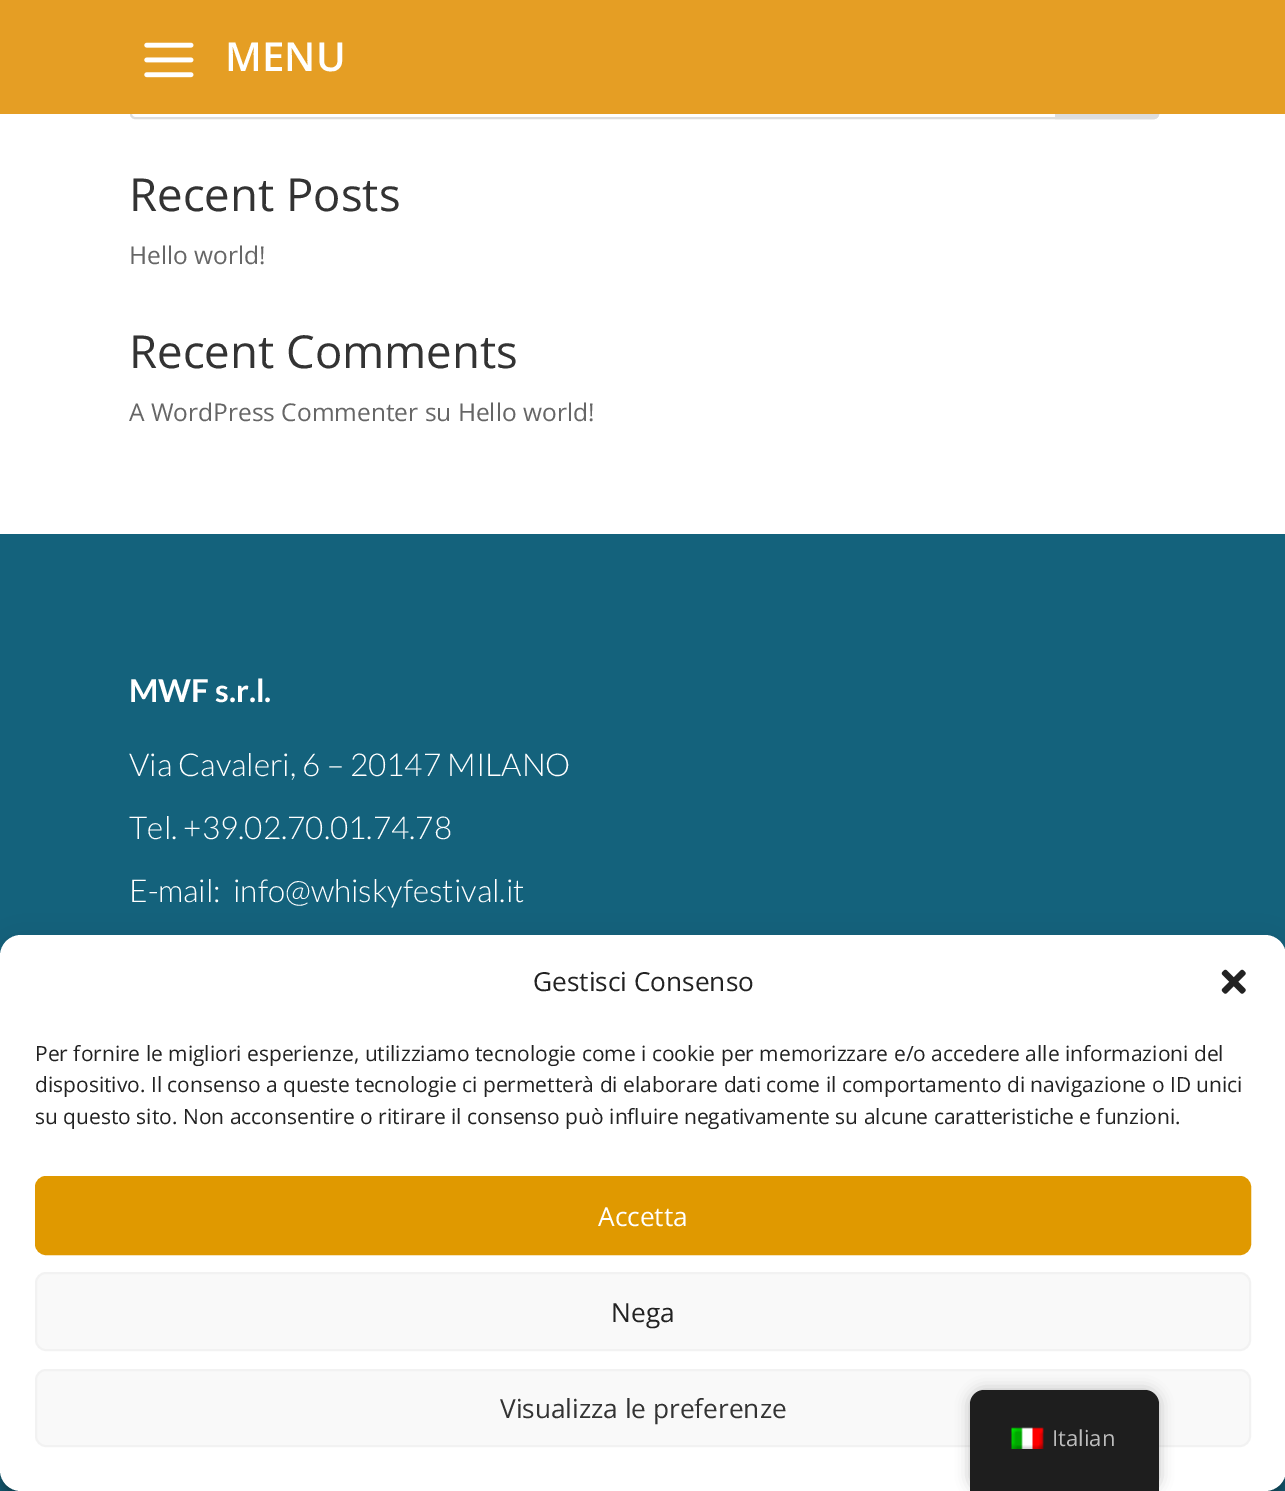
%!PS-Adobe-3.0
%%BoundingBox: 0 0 1285 1491
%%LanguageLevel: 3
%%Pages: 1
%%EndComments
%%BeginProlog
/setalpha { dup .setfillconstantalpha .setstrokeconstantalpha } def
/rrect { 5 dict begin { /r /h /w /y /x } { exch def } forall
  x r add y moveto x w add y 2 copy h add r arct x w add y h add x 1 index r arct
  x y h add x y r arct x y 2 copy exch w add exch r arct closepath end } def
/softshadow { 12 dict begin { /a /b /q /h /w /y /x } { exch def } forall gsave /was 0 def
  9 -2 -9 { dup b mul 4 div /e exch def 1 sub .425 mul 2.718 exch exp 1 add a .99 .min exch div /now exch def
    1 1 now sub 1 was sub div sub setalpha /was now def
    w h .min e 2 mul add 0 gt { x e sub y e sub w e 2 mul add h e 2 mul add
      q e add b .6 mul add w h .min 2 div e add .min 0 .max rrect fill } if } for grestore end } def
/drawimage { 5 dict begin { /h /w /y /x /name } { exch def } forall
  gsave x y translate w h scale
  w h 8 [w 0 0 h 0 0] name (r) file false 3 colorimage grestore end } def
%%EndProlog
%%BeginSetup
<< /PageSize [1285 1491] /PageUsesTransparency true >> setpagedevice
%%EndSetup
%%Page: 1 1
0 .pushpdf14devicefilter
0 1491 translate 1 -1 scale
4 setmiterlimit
1 setgray
0 0 1285 1491 rectfill
0.867 setgray
2 setlinewidth
131 50 1027 68 4 rrect stroke
newpath 1056 50 moveto 1154 50 lineto 1156 50 1158 52 1158 54 curveto 1158 114 lineto 1158 116 1156 118 1154 118 curveto 1056 118 lineto closepath gsave fill grestore
stroke
0.898 0.62 0.141 setrgbcolor
0 0 1285 114 rectfill
(images/1.raw) 144 42 50 36 drawimage
0.078 0.384 0.486 setrgbcolor
0 534 1285 957 rectfill
0 setgray
0 945 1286 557 21 5 0.23 softshadow
0 952 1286 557 21 17.5 0.19 softshadow
1 setgray
0 935 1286 556 21 rrect fill
(images/2.raw) 1221 969 25 25 drawimage
0.878 0.6 0 setrgbcolor
36 1177 1214 77 10 rrect gsave fill grestore
stroke
0.976 setgray
36 1273 1214 77 10 rrect gsave fill grestore
0.949 setgray
stroke
0.976 setgray
36 1370 1214 76 10 rrect gsave fill grestore
0.949 setgray
stroke
0 setgray
970 1390 189 101 14 7 0.25 softshadow
0.118 setgray
newpath 984 1390 moveto 1145 1390 lineto 1152.5 1390 1159 1396.5 1159 1404 curveto 1159 1491 lineto 970 1491 lineto 970 1404 lineto 970 1396.5 976.5 1390 984 1390 curveto closepath fill
(images/3.raw) 1011 1427 33 22 drawimage
/OpenSans-SemiBold [40 0 0 -40 0 0] selectfont
1 setgray
225 71 moveto (MENU) show
/OpenSans-Regular [45.5 0 0 -45.5 0 0] selectfont
0.2 setgray
129 211 moveto (Recent Posts) show
/OpenSans-Regular [24.5 0 0 -24.5 0 0] selectfont
0.4 setgray
129 264 moveto (Hello world!) show
/OpenSans-Regular [45.5 0 0 -45.5 0 0] selectfont
0.2 setgray
129 368 moveto (Recent Comments) show
/OpenSans-Regular [24.5 0 0 -24.5 0 0] selectfont
0.4 setgray
129 421 moveto (A WordPress Commenter su Hello world!) show
/Lato-Bold [31.5 0 0 -31.5 0 0] selectfont
1 setgray
129 702 moveto (MWF s.r.l.) show
/Lato-Light [31.5 0 0 -31.5 0 0] selectfont
129 776 moveto (Via Cavaleri, 6 – 20147 MILANO) show
129 839 moveto (Tel. +39.02.70.01.74.78) show
129 902 moveto (E-mail:) show
233 902 moveto (info@whiskyfestival.it) show
/OpenSans-Regular [26.25 0 0 -26.25 0 0] selectfont
0.133 setgray
533 991 moveto (Gestisci Consenso) show
/OpenSans-Regular [21 0 0 -21 0 0] selectfont
35 1061 moveto (Per fornire le migliori esperienze, utilizziamo tecnologie come i cookie per memorizzare e/o accedere alle informazioni del) show
35 1092 moveto (dispositivo. Il consenso a queste tecnologie ci permetterà di elaborare dati come il comportamento di navigazione o ID unici) show
35 1124 moveto (su questo sito. Non acconsentire o ritirare il consenso può influire negativamente su alcune caratteristiche e funzioni.) show
/OpenSans-Regular [26.25 0 0 -26.25 0 0] selectfont
1 setgray
598 1226 moveto (Accetta) show
0.133 setgray
611 1322 moveto (Nega) show
0.2 setgray
500 1418 moveto (Visualizza le preferenze) show
/OpenSans-Regular [22 0 0 -22 0 0] selectfont
0.741 setgray
1052 1446 moveto (Italian) show
.poppdf14devicefilter showpage
%%EOF
